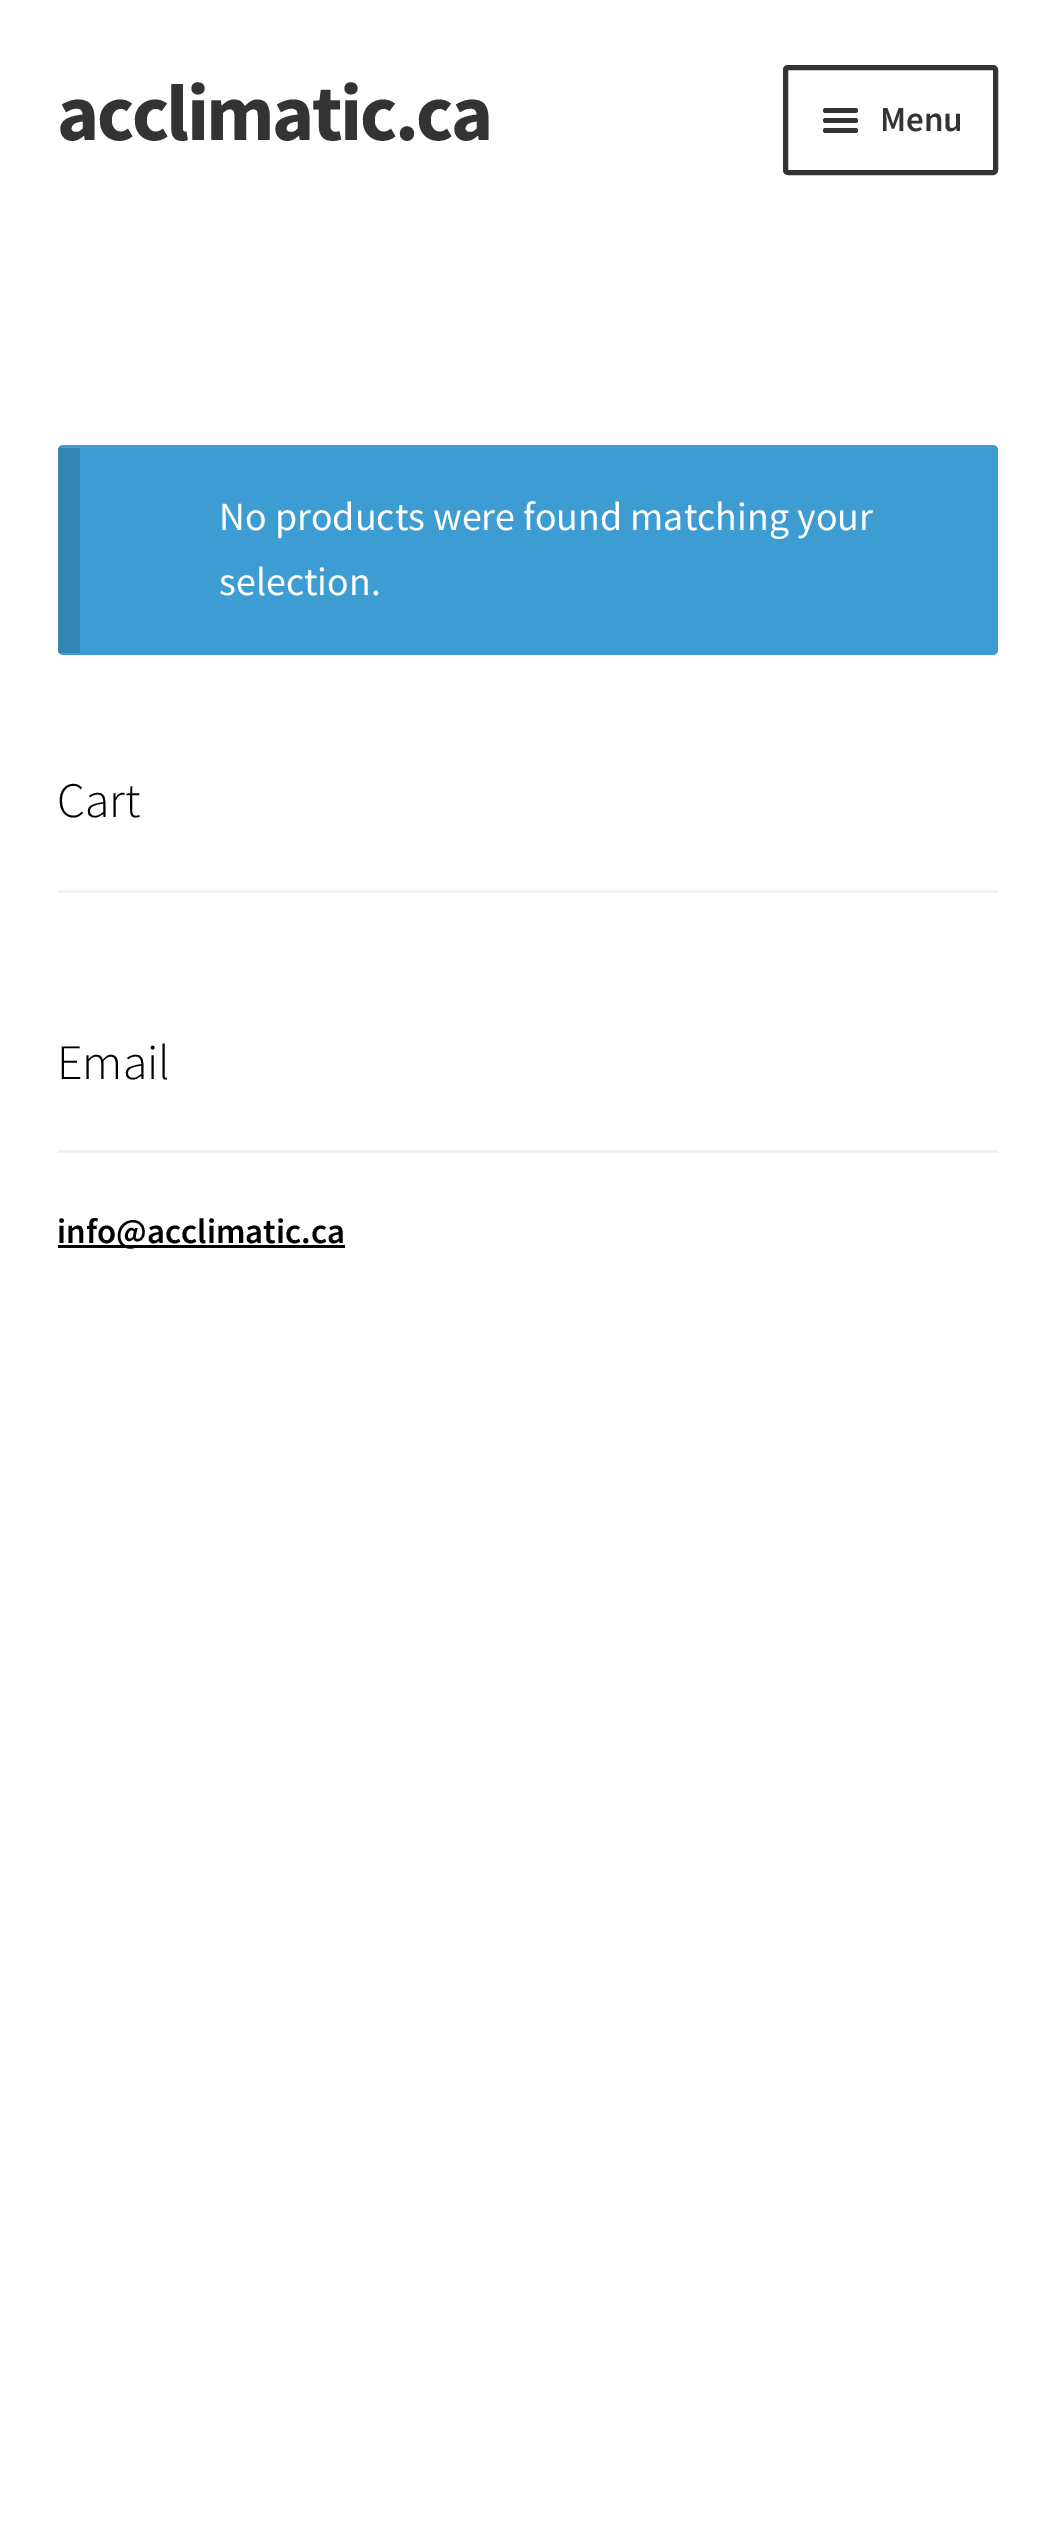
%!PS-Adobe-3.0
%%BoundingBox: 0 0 1054 2540
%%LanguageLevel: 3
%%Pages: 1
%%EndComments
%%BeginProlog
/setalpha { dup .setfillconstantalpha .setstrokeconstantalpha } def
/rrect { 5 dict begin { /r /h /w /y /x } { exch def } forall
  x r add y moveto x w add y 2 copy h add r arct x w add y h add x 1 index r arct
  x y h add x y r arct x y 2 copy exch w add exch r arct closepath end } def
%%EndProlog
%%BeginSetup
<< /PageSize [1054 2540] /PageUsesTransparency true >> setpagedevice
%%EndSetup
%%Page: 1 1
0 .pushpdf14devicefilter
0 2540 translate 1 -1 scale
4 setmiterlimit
1 setgray
0 0 1054 2540 rectfill
0.2 setgray
5 setlinewidth
785.5 67.5 210 105 2.5 rrect stroke
823 108 35 5 2.5 rrect fill
823 118 35 5 2.5 rrect fill
823 128 35 5 2.5 rrect fill
0.239 0.612 0.824 setrgbcolor
58 445 940 210 5 rrect fill
0.15 setalpha
0 setgray
58 448 22 205 rectfill
1 setalpha
0.949 setgray
58 890 940 3 rectfill
58 1150 940 3 rectfill
0.02 setgray
58 1245 287 3 rectfill
/SourceSansPro-Bold [80 0 0 -80 0 0] selectfont
0.2 setgray
57 140 moveto -2.5 0 (acclimatic.ca) ashow
/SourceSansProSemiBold-SemiBold [35 0 0 -35 0 0] selectfont
880 131 moveto (Menu) show
/SourceSansPro-Regular [40 0 0 -40 0 0] selectfont
1 setgray
219 530 moveto (No products were found matching your) show
219 595 moveto (selection.) show
/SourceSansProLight-Light [49.5 0 0 -49.5 0 0] selectfont
0 setgray
57 817 moveto (Cart) show
57 1079 moveto (Email) show
/SourceSansProSemiBold-SemiBold [35 0 0 -35 0 0] selectfont
57 1243 moveto (info@acclimatic.ca) show
.poppdf14devicefilter showpage
%%EOF
